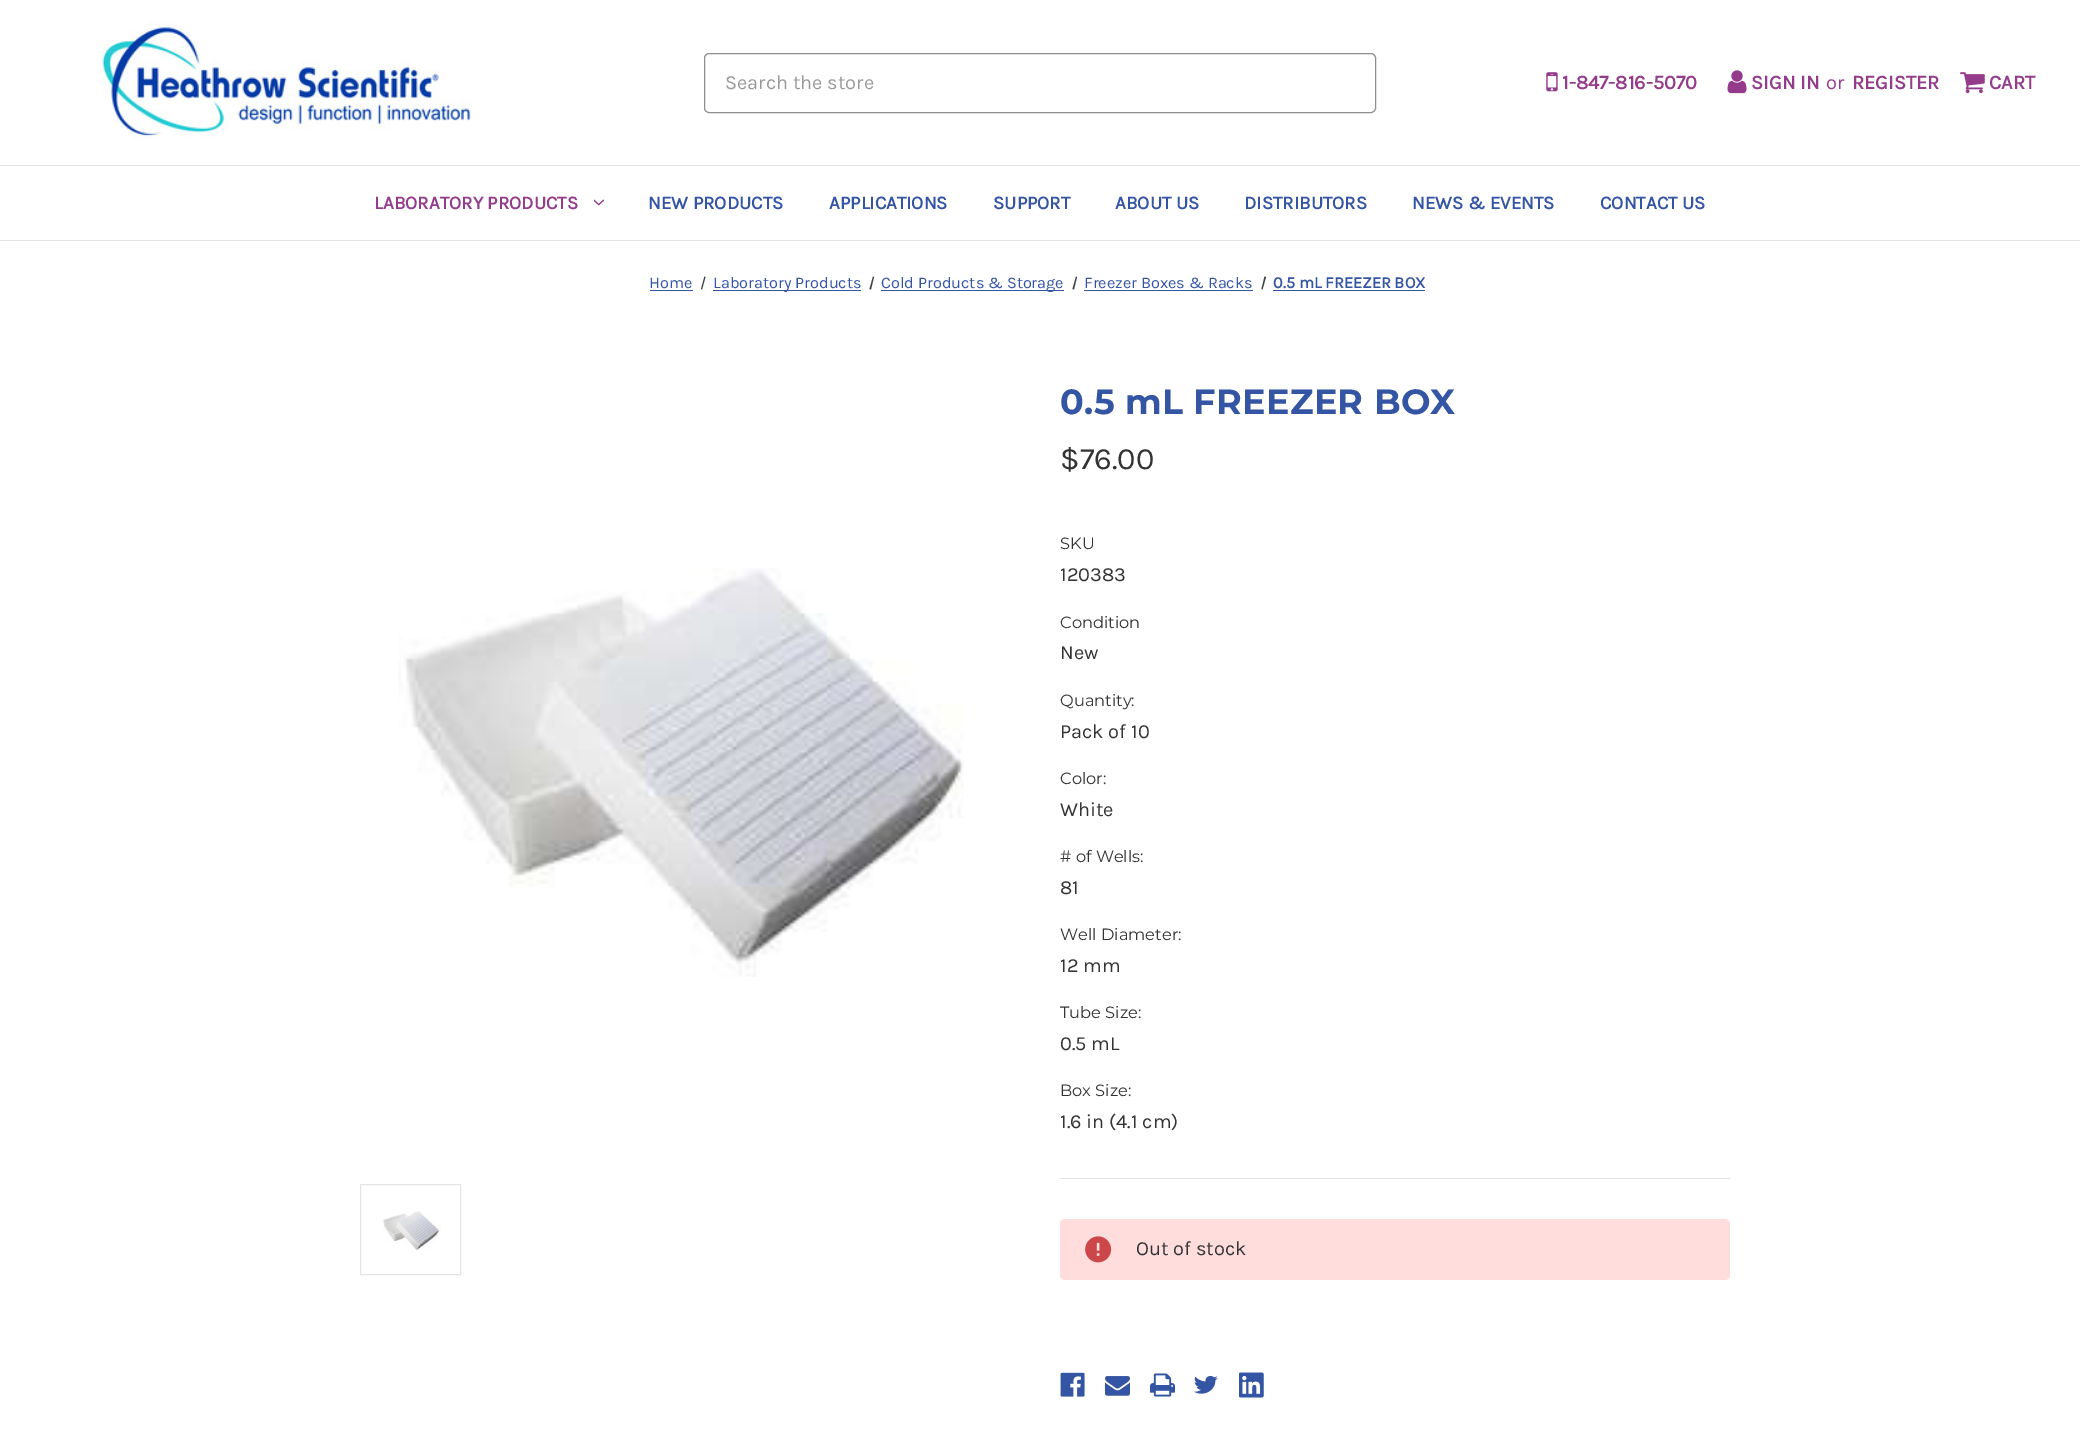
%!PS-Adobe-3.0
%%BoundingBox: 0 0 2080 1433
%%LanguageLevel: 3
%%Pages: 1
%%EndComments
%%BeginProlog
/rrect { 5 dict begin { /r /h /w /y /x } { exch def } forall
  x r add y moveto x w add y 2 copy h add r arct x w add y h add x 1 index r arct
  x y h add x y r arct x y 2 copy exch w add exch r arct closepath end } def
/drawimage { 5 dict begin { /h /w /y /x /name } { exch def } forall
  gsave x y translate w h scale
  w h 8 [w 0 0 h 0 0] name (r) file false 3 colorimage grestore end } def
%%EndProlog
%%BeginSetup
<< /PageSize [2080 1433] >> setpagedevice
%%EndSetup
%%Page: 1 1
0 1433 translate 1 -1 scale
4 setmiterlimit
1 setgray
0 0 2080 1433 rectfill
0.898 setgray
0 240 2080 1 rectfill
0 165 2080 1 rectfill
(images/1.raw) 100 20 371 120 drawimage
0.561 setgray
704.5 53.5 671 59 4.5 rrect stroke
(images/2.raw) 1546 72 12 20 drawimage
(images/3.raw) 1727 70 20 24 drawimage
(images/4.raw) 1960 72 25 22 drawimage
(images/5.raw) 594 199 10 7 drawimage
0.204 0.329 0.643 setrgbcolor
650 290 43 1 rectfill
0.267 setgray
newpath 704.5 276.5 moveto 705.5 277 lineto 702 289.5 lineto 701 289 lineto closepath fill
0.204 0.329 0.643 setrgbcolor
713 290 148 1 rectfill
0.267 setgray
newpath 873 276.5 moveto 874 277 lineto 871 289.5 lineto 869.5 289 lineto closepath fill
0.204 0.329 0.643 setrgbcolor
881 290 183 1 rectfill
0.267 setgray
newpath 1076 276.5 moveto 1077 277 lineto 1074 289.5 lineto 1072.5 289 lineto closepath fill
0.204 0.329 0.643 setrgbcolor
1084 290 169 1 rectfill
0.267 setgray
newpath 1264.5 276.5 moveto 1266 277 lineto 1262.5 289.5 lineto 1261.5 289 lineto closepath fill
0.204 0.329 0.643 setrgbcolor
1273 290 152 1 rectfill
(images/6.raw) 398 568 566 409 drawimage
0.898 setgray
360.5 1184.5 100 90 rectstroke
(images/7.raw) 383 1211 58 40 drawimage
1060 1178 670 1 rectfill
1 0.867 0.867 setrgbcolor
1060 1219 670 61 5 rrect fill
(images/8.raw) 1085 1236 27 27 drawimage
(images/9.raw) 1060 1372 25 25 drawimage
(images/10.raw) 1105 1376 25 20 drawimage
(images/11.raw) 1150 1373 25 24 drawimage
(images/12.raw) 1194 1375 24 19 drawimage
(images/13.raw) 1239 1372 25 26 drawimage
/Karla-Regular [20 0 0 -20 0 0] selectfont
0.6 setgray
725 89 moveto (Search the store) show
/Karla-Bold [20 0 0 -20 0 0] selectfont
0.58 0.231 0.549 setrgbcolor
1562 89 moveto (1-847-816-5070) show
1751 89 moveto (SIGN IN) show
/Karla-Regular [20 0 0 -20 0 0] selectfont
1826 89 moveto (or) show
/Karla-Bold [20 0 0 -20 0 0] selectfont
1852 89 moveto (REGISTER) show
1989 89 moveto (CART) show
/Karla-Bold [18.75 0 0 -18.75 0 0] selectfont
374 209 moveto (LABORATORY PRODUCTS) show
0.204 0.329 0.643 setrgbcolor
648 209 moveto (NEW PRODUCTS) show
829 209 moveto (APPLICATIONS) show
993 209 moveto (SUPPORT) show
1115 209 moveto (ABOUT US) show
1244 209 moveto (DISTRIBUTORS) show
1412 209 moveto (NEWS & EVENTS) show
1600 209 moveto (CONTACT US) show
/Karla-Regular [16.25 0 0 -16.25 0 0] selectfont
649 288 moveto (Home) show
713 288 moveto (Laboratory Products) show
881 288 moveto (Cold Products & Storage) show
1084 288 moveto (Freezer Boxes & Racks) show
/Karla-Bold [16.25 0 0 -16.25 0 0] selectfont
1273 288 moveto (0.5 mL FREEZER BOX) show
/Montserrat-Bold [35 0 0 -35 0 0] selectfont
1060 414 moveto 0.3 0 (0.5 mL FREEZER BOX) ashow
/Karla-Regular [31 0 0 -31 0 0] selectfont
0.2 setgray
1060 469 moveto ($76.00) show
/Montserrat-Regular [16.25 0 0 -16.25 0 0] selectfont
1060 549 moveto (SKU) show
/Karla-Regular [20 0 0 -20 0 0] selectfont
1060 581 moveto (120383) show
/Montserrat-Regular [16.25 0 0 -16.25 0 0] selectfont
1060 628 moveto (Condition) show
/Karla-Regular [20 0 0 -20 0 0] selectfont
1060 659 moveto (New) show
/Montserrat-Regular [16.25 0 0 -16.25 0 0] selectfont
1060 706 moveto (Quantity:) show
/Karla-Regular [20 0 0 -20 0 0] selectfont
1060 738 moveto (Pack of 10) show
/Montserrat-Regular [16.25 0 0 -16.25 0 0] selectfont
1060 784 moveto (Color:) show
/Karla-Regular [20 0 0 -20 0 0] selectfont
1060 816 moveto (White) show
/Montserrat-Regular [16.25 0 0 -16.25 0 0] selectfont
1060 862 moveto (# of Wells:) show
/Karla-Regular [20 0 0 -20 0 0] selectfont
1060 894 moveto (81) show
/Montserrat-Regular [16.25 0 0 -16.25 0 0] selectfont
1060 940 moveto (Well Diameter:) show
/Karla-Regular [20 0 0 -20 0 0] selectfont
1060 972 moveto (12 mm) show
/Montserrat-Regular [16.25 0 0 -16.25 0 0] selectfont
1060 1018 moveto (Tube Size:) show
/Karla-Regular [20 0 0 -20 0 0] selectfont
1060 1050 moveto (0.5 mL) show
/Montserrat-Regular [16.25 0 0 -16.25 0 0] selectfont
1060 1096 moveto (Box Size:) show
/Karla-Regular [20 0 0 -20 0 0] selectfont
1060 1128 moveto (1.6 in \(4.1 cm\)) show
1136 1255 moveto (Out of stock) show
showpage
%%EOF
